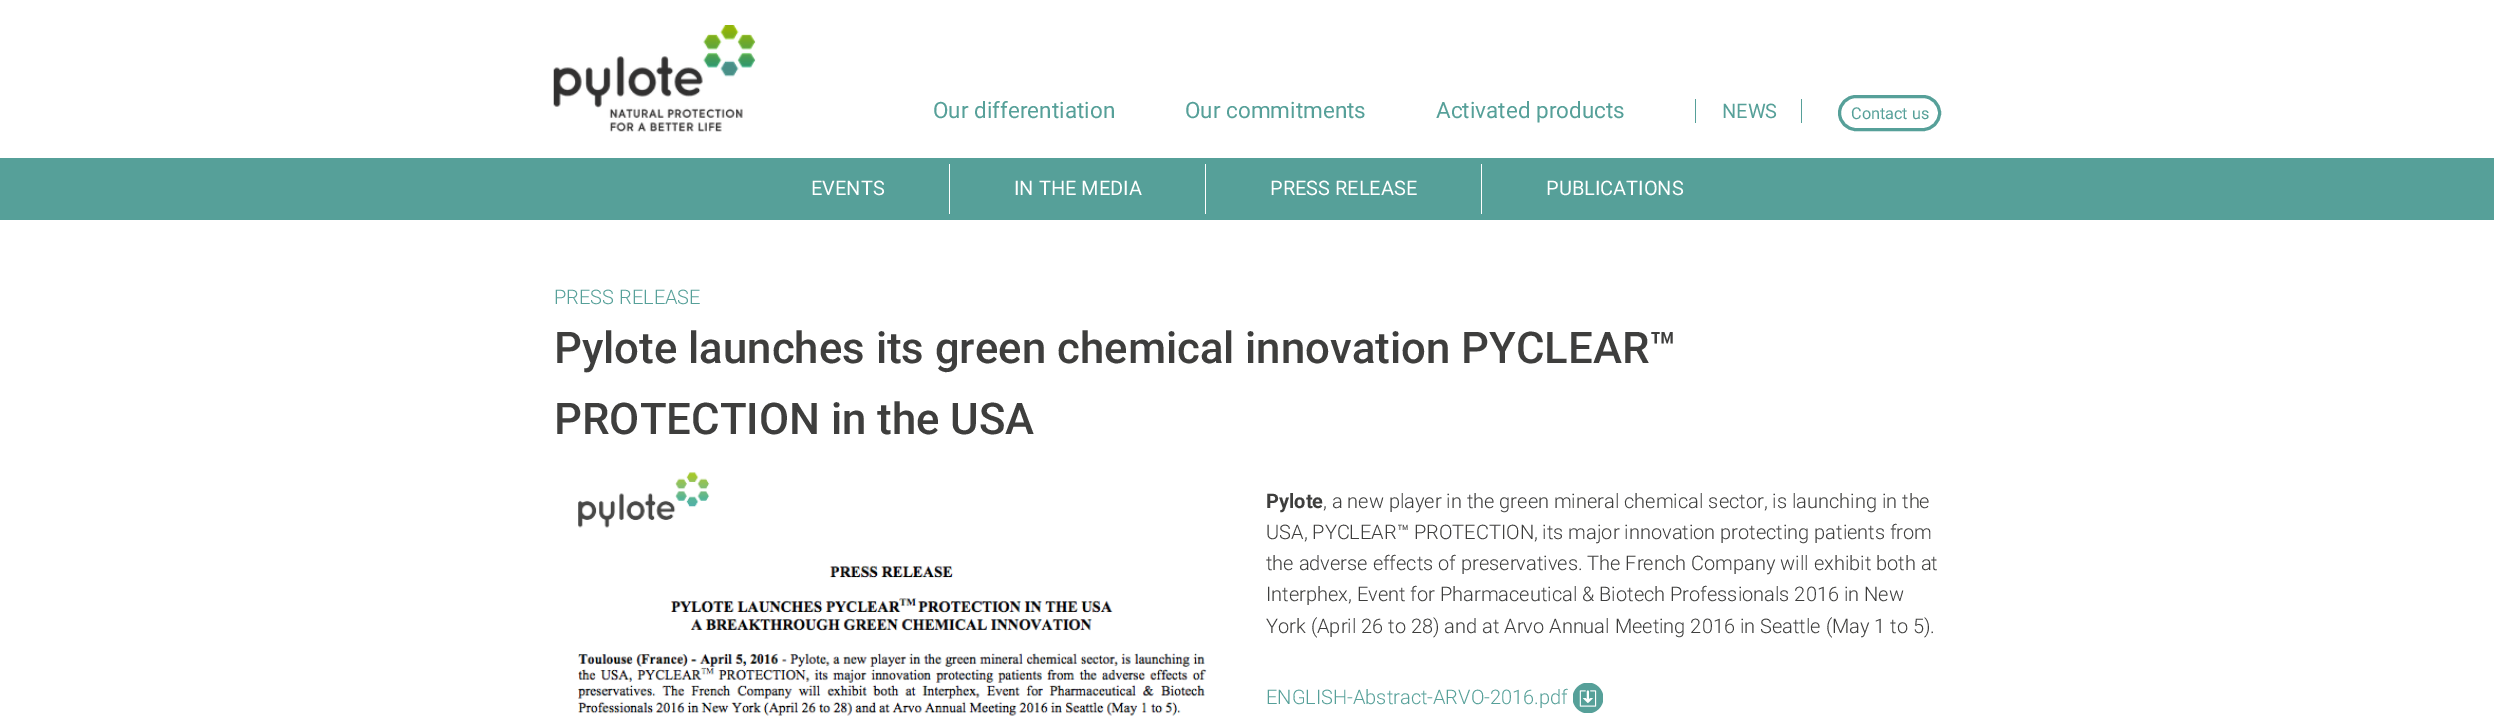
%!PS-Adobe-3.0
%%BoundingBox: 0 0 2494 720
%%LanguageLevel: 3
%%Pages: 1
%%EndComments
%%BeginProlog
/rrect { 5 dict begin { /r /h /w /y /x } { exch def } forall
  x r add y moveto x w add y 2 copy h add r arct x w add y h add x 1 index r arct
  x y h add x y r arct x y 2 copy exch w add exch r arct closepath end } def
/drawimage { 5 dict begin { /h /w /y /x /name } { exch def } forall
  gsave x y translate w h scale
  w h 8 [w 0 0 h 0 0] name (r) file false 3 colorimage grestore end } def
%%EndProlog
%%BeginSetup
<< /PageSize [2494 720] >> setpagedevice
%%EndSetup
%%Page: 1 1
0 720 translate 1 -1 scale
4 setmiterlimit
1 setgray
0 0 2494 720 rectfill
(images/1.raw) 553 25 203 107 drawimage
0.337 0.627 0.6 setrgbcolor
1801 99 1 24 rectfill
1695 99 1 24 rectfill
3 setlinewidth
1839.5 96.5 100 33 16.5 rrect stroke
0 158 2494 62 rectfill
1 setgray
949 164 1 50 rectfill
1205 164 1 50 rectfill
1481 164 1 50 rectfill
(images/2.raw) 577 472 630 244 drawimage
(images/3.raw) 1573 683 30 30 drawimage
/Roboto-Regular [22.5 0 0 -22.5 0 0] selectfont
0.337 0.627 0.6 setrgbcolor
933 118 moveto (Our differentiation) show
1185 118 moveto (Our commitments) show
1436 118 moveto (Activated products) show
/Roboto-Regular [20 0 0 -20 0 0] selectfont
1722 118 moveto (NEWS) show
/Roboto-Regular [16.25 0 0 -16.25 0 0] selectfont
1851 119 moveto (Contact us) show
/Roboto-Regular [20 0 0 -20 0 0] selectfont
1 setgray
811 195 moveto (EVENTS) show
1014 195 moveto (IN THE MEDIA) show
1270 195 moveto (PRESS RELEASE) show
1546 195 moveto (PUBLICATIONS) show
/Roboto-Light [20 0 0 -20 0 0] selectfont
0.337 0.627 0.6 setrgbcolor
554 304 moveto (PRESS RELEASE) show
/Roboto-Medium [43.75 0 0 -43.75 0 0] selectfont
0.243 0.243 0.239 setrgbcolor
554 363 moveto (Pylote launches its green chemical innovation PYCLEAR™) show
554 434 moveto (PROTECTION in the USA) show
/Roboto-Bold [20 0 0 -20 0 0] selectfont
1266 508 moveto (Pylote) show
/Roboto-Light [20 0 0 -20 0 0] selectfont
1323 508 moveto (, a new player in the green mineral chemical sector, is launching in the) show
1266 539 moveto (USA, PYCLEAR™ PROTECTION, its major innovation protecting patients from) show
1266 570 moveto (the adverse effects of preservatives. The French Company will exhibit both at) show
1266 601 moveto (Interphex, Event for Pharmaceutical & Biotech Professionals 2016 in New) show
1266 633 moveto (York \(April 26 to 28\) and at Arvo Annual Meeting 2016 in Seattle \(May 1 to 5\).) show
0.337 0.627 0.6 setrgbcolor
1266 704 moveto (ENGLISH-Abstract-ARVO-2016.pdf) show
showpage
%%EOF
